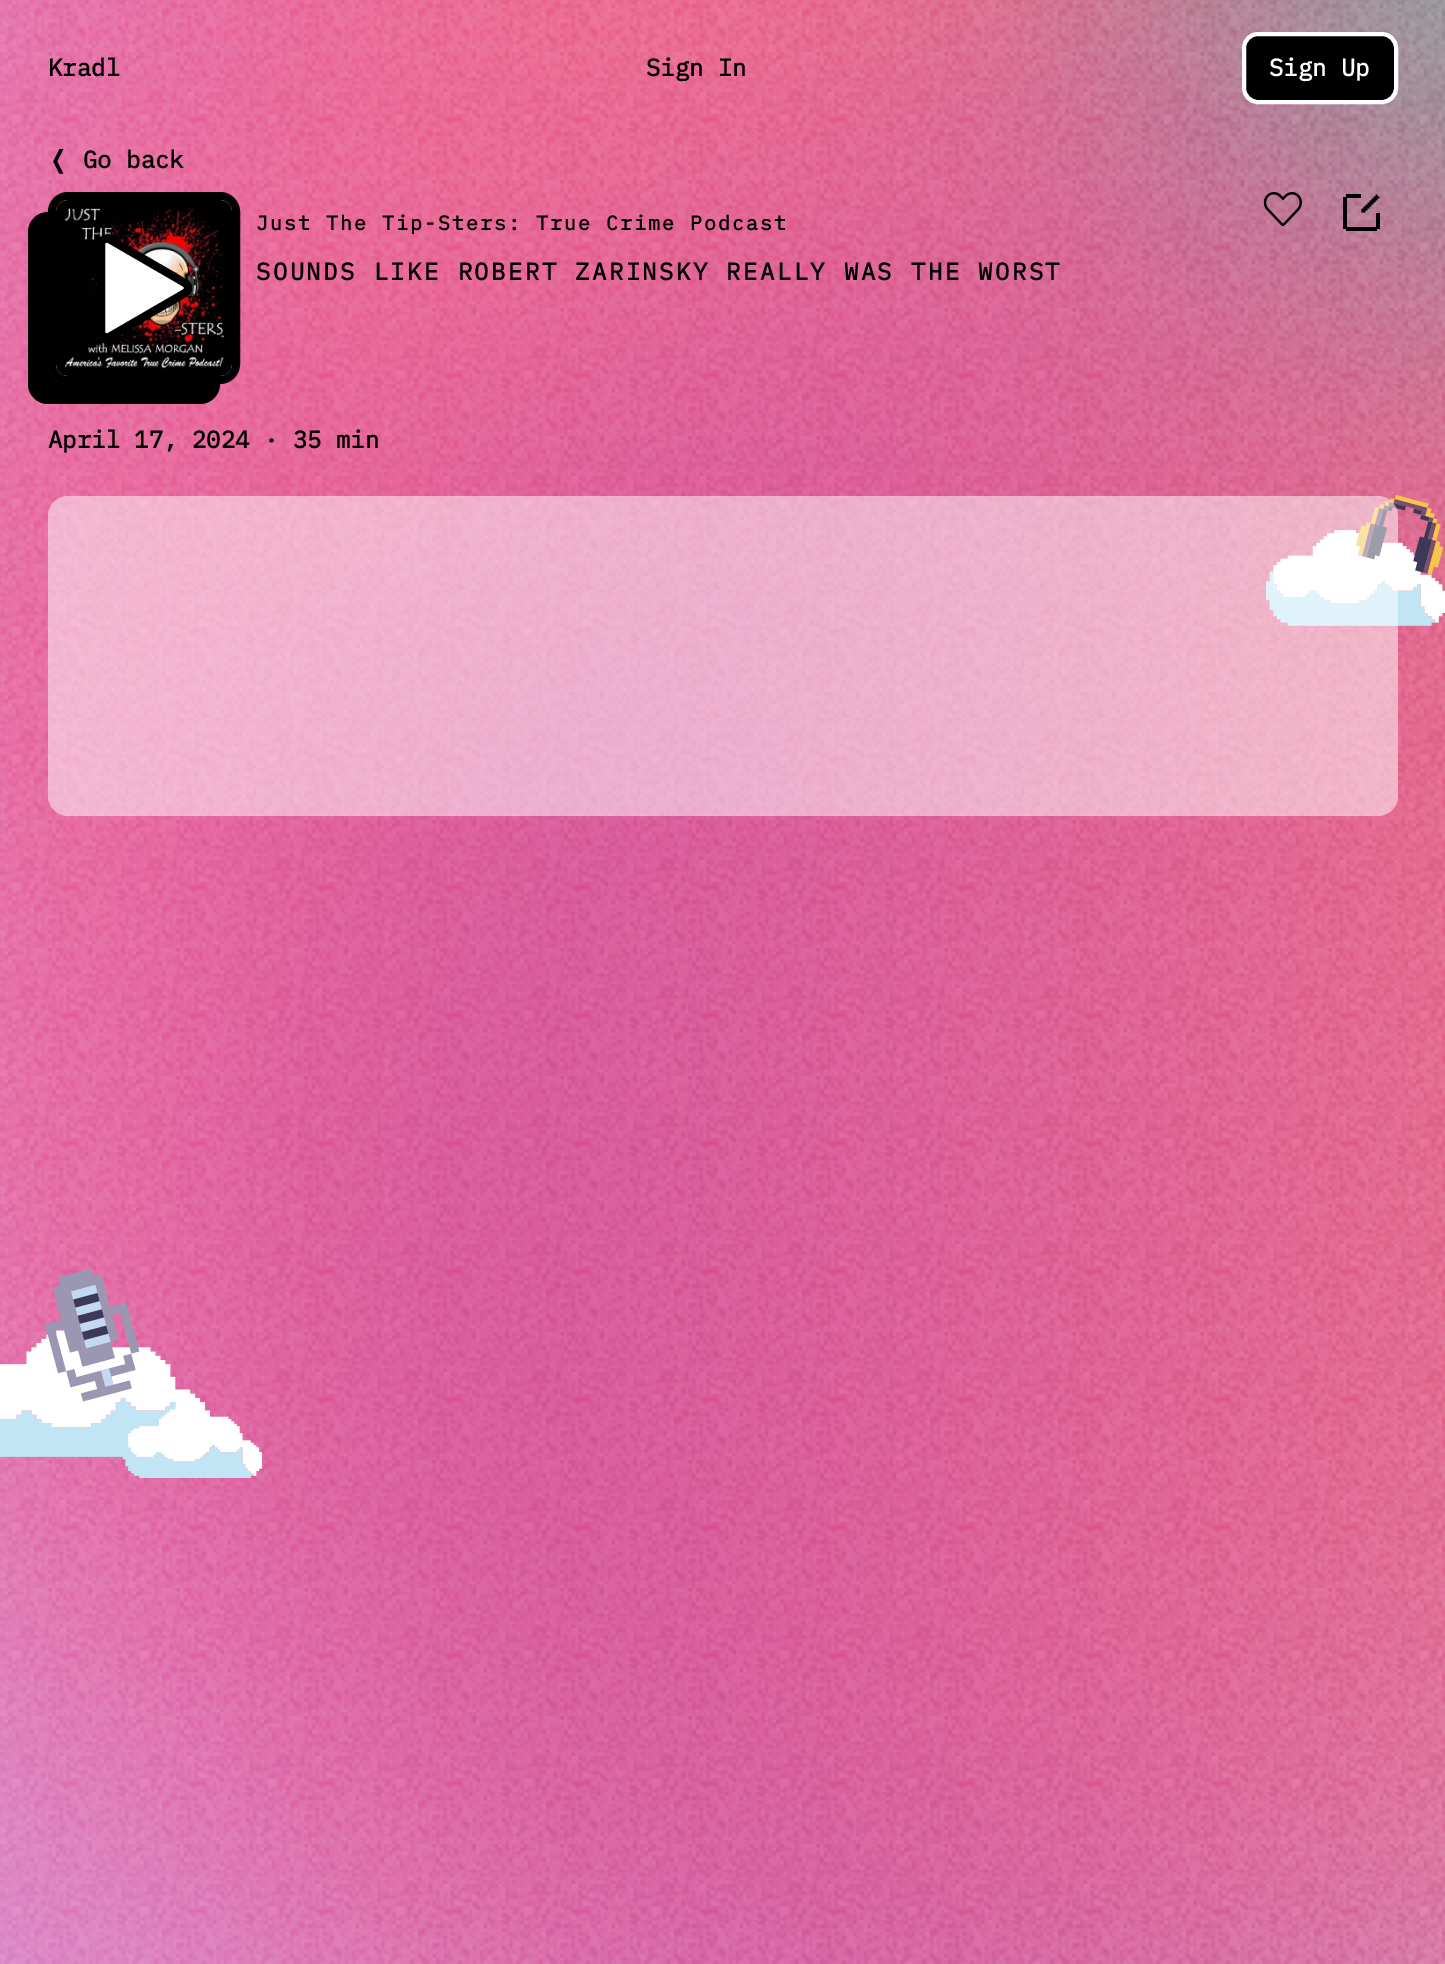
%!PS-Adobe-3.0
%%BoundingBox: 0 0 1445 1964
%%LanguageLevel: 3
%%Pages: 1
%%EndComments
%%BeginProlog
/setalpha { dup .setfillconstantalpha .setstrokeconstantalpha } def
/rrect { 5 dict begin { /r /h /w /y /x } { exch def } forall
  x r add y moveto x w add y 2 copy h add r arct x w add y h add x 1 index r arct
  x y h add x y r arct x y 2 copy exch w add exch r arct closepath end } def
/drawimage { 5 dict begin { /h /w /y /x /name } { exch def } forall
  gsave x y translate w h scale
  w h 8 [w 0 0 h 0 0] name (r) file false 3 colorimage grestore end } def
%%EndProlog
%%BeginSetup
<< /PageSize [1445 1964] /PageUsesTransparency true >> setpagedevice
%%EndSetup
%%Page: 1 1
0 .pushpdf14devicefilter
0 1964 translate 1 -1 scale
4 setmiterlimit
1 setgray
0 0 1445 1964 rectfill
(images/1.raw) 0 0 1445 1964 drawimage
(images/2.raw) 1266 495 179 131 drawimage
(images/3.raw) 0 1268 262 210 drawimage
0 setgray
1244 34 152 68 14 rrect gsave fill grestore
1 setgray
4 setlinewidth
stroke
0 setgray
newpath 48 212 moveto 37 212 28 221 28 232 curveto 28 384 lineto 28 395 37 404 48 404 curveto 200 404 lineto 211 404 220 395 220 384 curveto 68 384 lineto 57 384 48 375 48 364 curveto closepath fill
8 setlinewidth
52 196 184 184 16 rrect stroke
(images/4.raw) 56 200 176 176 drawimage
1 setgray
newpath 185 293 moveto 110 336 lineto 106 339 101 336 101 331 curveto 101 245 lineto 101 240 106 237 110 240 curveto 185 283 lineto 189 285 189 291 185 293 curveto closepath fill
0 setgray
newpath 185 293 moveto 110 336.5 lineto 106 339 101 336 101 331.5 curveto 101 244.5 lineto 101 240 106 237 110 239.5 curveto 185 283 lineto 189 285 189 291 185 293 curveto closepath stroke
(images/5.raw) 1263 192 39 35 drawimage
(images/6.raw) 1343 194 37 37 drawimage
0.5 setalpha
1 setgray
48 496 1350 320 20 rrect fill
/IBMPlexMono-Bold [24 0 0 -24 0 0] selectfont
1 setalpha
0 setgray
48 76 moveto (Kradl) show
646 76 moveto (Sign In) show
1 setgray
1269 76 moveto (Sign Up) show
/DejaVuSans-Bold [24 0 0 -24 0 0] selectfont
0 setgray
48 168 moveto (❬) show
/IBMPlexMono-Bold [24 0 0 -24 0 0] selectfont
83 168 moveto (Go back) show
/IBMPlexMono-Bold [20 0 0 -20 0 0] selectfont
256 230 moveto 2 0 (Just The Tip-Sters: True Crime Podcast) ashow
/IBMPlexMono-Bold [24 0 0 -24 0 0] selectfont
256 280 moveto 2.4 0 (SOUNDS LIKE ROBERT ZARINSKY REALLY WAS THE WORST) ashow
48 448 moveto (April 17, 2024 · 35 min) show
.poppdf14devicefilter showpage
%%EOF
